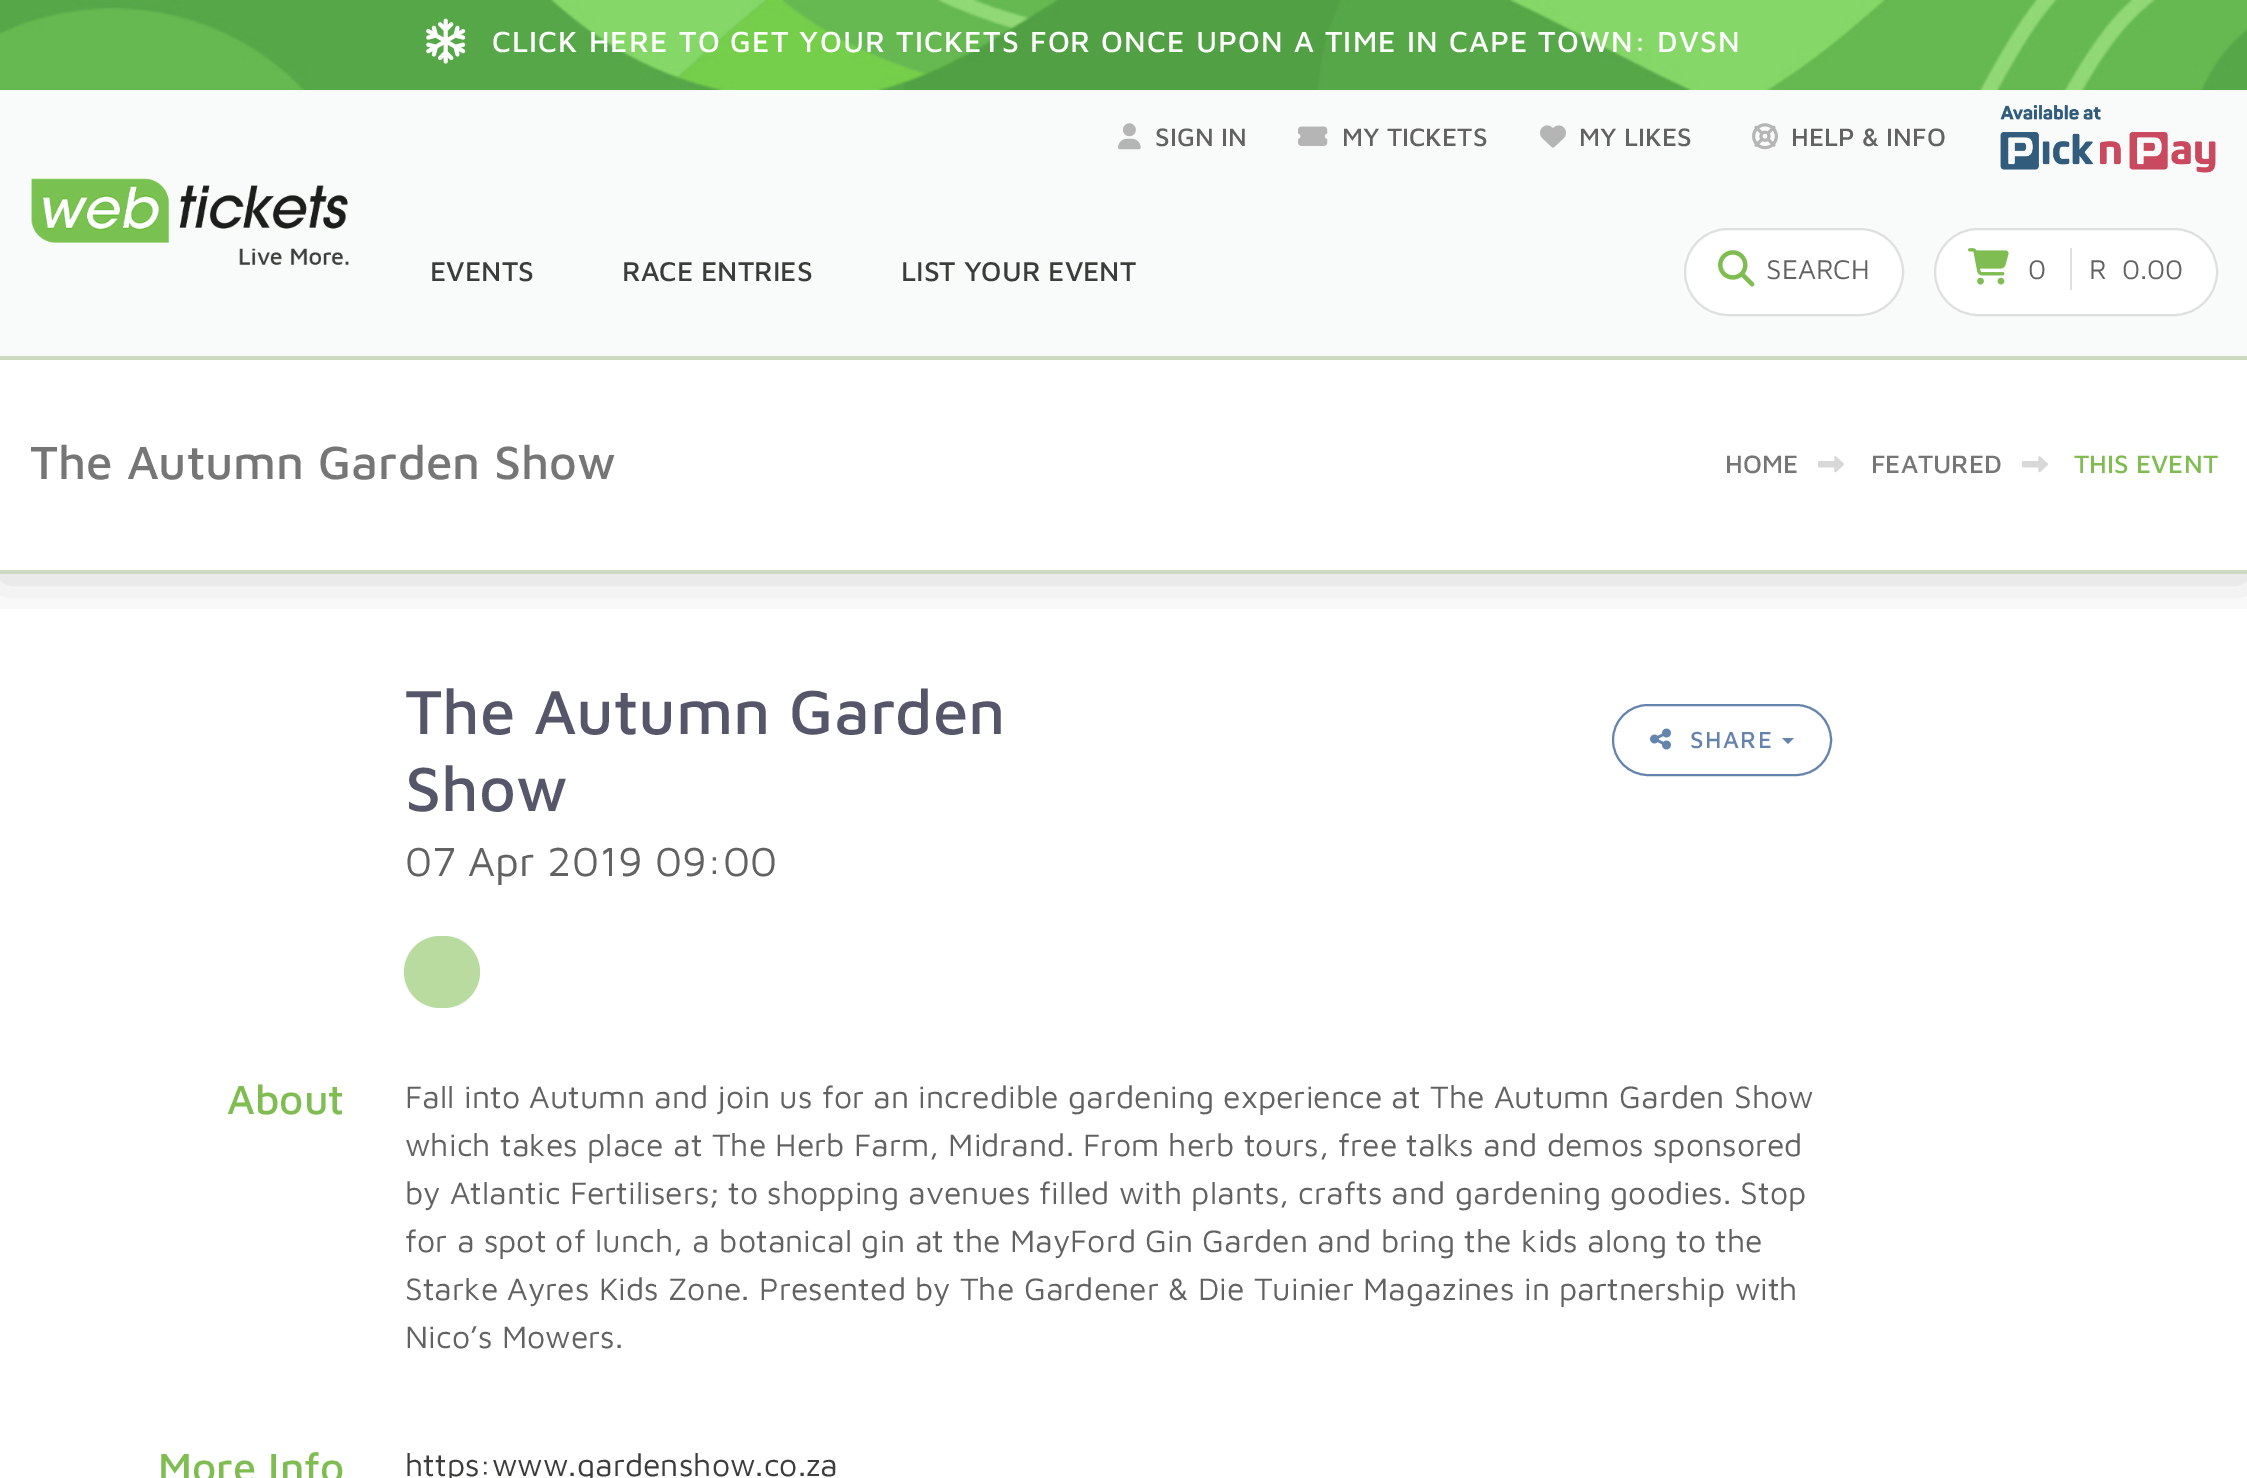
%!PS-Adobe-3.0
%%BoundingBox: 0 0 2247 1478
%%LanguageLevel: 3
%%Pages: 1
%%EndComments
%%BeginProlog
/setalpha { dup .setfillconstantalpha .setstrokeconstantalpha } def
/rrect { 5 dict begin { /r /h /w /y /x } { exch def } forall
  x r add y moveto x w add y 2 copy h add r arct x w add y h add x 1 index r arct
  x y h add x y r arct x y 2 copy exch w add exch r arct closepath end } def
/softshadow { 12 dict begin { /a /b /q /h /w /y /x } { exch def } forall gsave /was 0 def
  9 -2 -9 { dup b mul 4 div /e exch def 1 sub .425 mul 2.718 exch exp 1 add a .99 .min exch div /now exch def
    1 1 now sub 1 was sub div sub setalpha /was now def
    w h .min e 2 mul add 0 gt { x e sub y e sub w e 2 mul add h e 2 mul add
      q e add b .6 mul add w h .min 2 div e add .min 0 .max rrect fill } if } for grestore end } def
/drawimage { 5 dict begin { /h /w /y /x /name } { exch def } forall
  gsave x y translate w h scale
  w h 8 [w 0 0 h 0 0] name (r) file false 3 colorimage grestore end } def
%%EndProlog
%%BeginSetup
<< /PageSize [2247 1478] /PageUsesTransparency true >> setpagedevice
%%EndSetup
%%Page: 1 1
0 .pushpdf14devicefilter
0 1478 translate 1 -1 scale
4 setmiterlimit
1 setgray
0 0 2247 1478 rectfill
(images/1.raw) 0 0 2247 90 drawimage
(images/2.raw) 426 18 40 46 drawimage
gsave
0 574 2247 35 rectclip
0 setgray
0 366 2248 214 0 25 0.16 softshadow
grestore
0.976 0.984 0.984 setrgbcolor
0 90 2247 266 rectfill
0.796 0.851 0.757 setrgbcolor
0 356 2247 4 rectfill
(images/3.raw) 31 178 318 87 drawimage
(images/4.raw) 1118 123 23 27 drawimage
(images/5.raw) 1298 126 30 20 drawimage
(images/6.raw) 1540 125 26 23 drawimage
(images/7.raw) 1752 123 26 27 drawimage
(images/8.raw) 2000 105 216 68 drawimage
1 setgray
1685 229 218 86 43 rrect gsave fill grestore
0.875 setgray
2 setlinewidth
stroke
(images/9.raw) 1718 250 37 37 drawimage
1 setgray
1935 229 282 86 43 rrect gsave fill grestore
0.875 setgray
stroke
(images/10.raw) 1968 248 41 37 drawimage
2070 248 2 42 rectfill
0.796 0.851 0.757 setrgbcolor
0 570 2247 4 rectfill
(images/11.raw) 1818 456 26 17 drawimage
(images/11.raw) 2022 456 26 17 drawimage
0.396 0.518 0.678 setrgbcolor
1613 705 218 70 35 rrect stroke
(images/12.raw) 1650 728 21 22 drawimage
newpath 1782 738 moveto 1794 738 lineto 1788 744 lineto closepath fill
0.725 0.859 0.627 setrgbcolor
404 936 76 72 36 rrect fill
/MavenPro-Medium [30 0 0 -30 0 0] selectfont
1 setgray
492 52 moveto 1.2 0 (CLICK HERE TO GET YOUR TICKETS FOR ONCE UPON A TIME IN CAPE TOWN: DVSN) ashow
/MavenPro-Medium [26 0 0 -26 0 0] selectfont
0.384 setgray
1155 146 moveto (SIGN IN) show
1342 146 moveto (MY TICKETS) show
1579 146 moveto (MY LIKES) show
1791 146 moveto (HELP & INFO) show
/MavenPro-Medium [28 0 0 -28 0 0] selectfont
0.227 0.239 0.227 setrgbcolor
430 281 moveto (EVENTS) show
622 281 moveto (RACE ENTRIES) show
901 281 moveto (LIST YOUR EVENT) show
/MavenPro-Regular [28 0 0 -28 0 0] selectfont
0.384 setgray
1766 279 moveto (SEARCH) show
2028 279 moveto (0) show
2089 279 moveto (R) show
2122 279 moveto (0.00) show
/MavenPro-Medium [48 0 0 -48 0 0] selectfont
0.463 setgray
30 479 moveto (The Autumn Garden Show) show
/MavenPro-Medium [26 0 0 -26 0 0] selectfont
1725 473 moveto (HOME) show
1871 473 moveto (FEATURED) show
0.498 0.741 0.322 setrgbcolor
2074 473 moveto (THIS EVENT) show
/MavenPro-Medium [64 0 0 -64 0 0] selectfont
0.337 0.337 0.42 setrgbcolor
405 734 moveto (The Autumn Garden) show
405 811 moveto (Show) show
/MavenPro-Regular [42 0 0 -42 0 0] selectfont
0.384 setgray
405 876 moveto (07 Apr 2019 09:00) show
/MavenPro-Medium [24 0 0 -24 0 0] selectfont
0.396 0.518 0.678 setrgbcolor
1690 748 moveto 1.5 0 (SHARE) ashow
/MavenPro-Medium [42 0 0 -42 0 0] selectfont
0.498 0.741 0.322 setrgbcolor
227 1114 moveto (About) show
/MavenPro-Regular [32 0 0 -32 0 0] selectfont
0.384 setgray
405 1108 moveto (Fall into Autumn and join us for an incredible gardening experience at The Autumn Garden Show) show
405 1156 moveto (which takes place at The Herb Farm, Midrand. From herb tours, free talks and demos sponsored) show
405 1204 moveto (by Atlantic Fertilisers; to shopping avenues filled with plants, crafts and gardening goodies. Stop) show
405 1252 moveto (for a spot of lunch, a botanical gin at the MayFord Gin Garden and bring the kids along to the) show
405 1300 moveto (Starke Ayres Kids Zone. Presented by The Gardener & Die Tuinier Magazines in partnership with) show
405 1348 moveto (Nico’s Mowers.) show
/MavenPro-Medium [42 0 0 -42 0 0] selectfont
0.498 0.741 0.322 setrgbcolor
158 1482 moveto (More Info) show
/MavenPro-Regular [32 0 0 -32 0 0] selectfont
0.227 0.239 0.227 setrgbcolor
405 1476 moveto (https:www.gardenshow.co.za) show
.poppdf14devicefilter showpage
%%EOF
